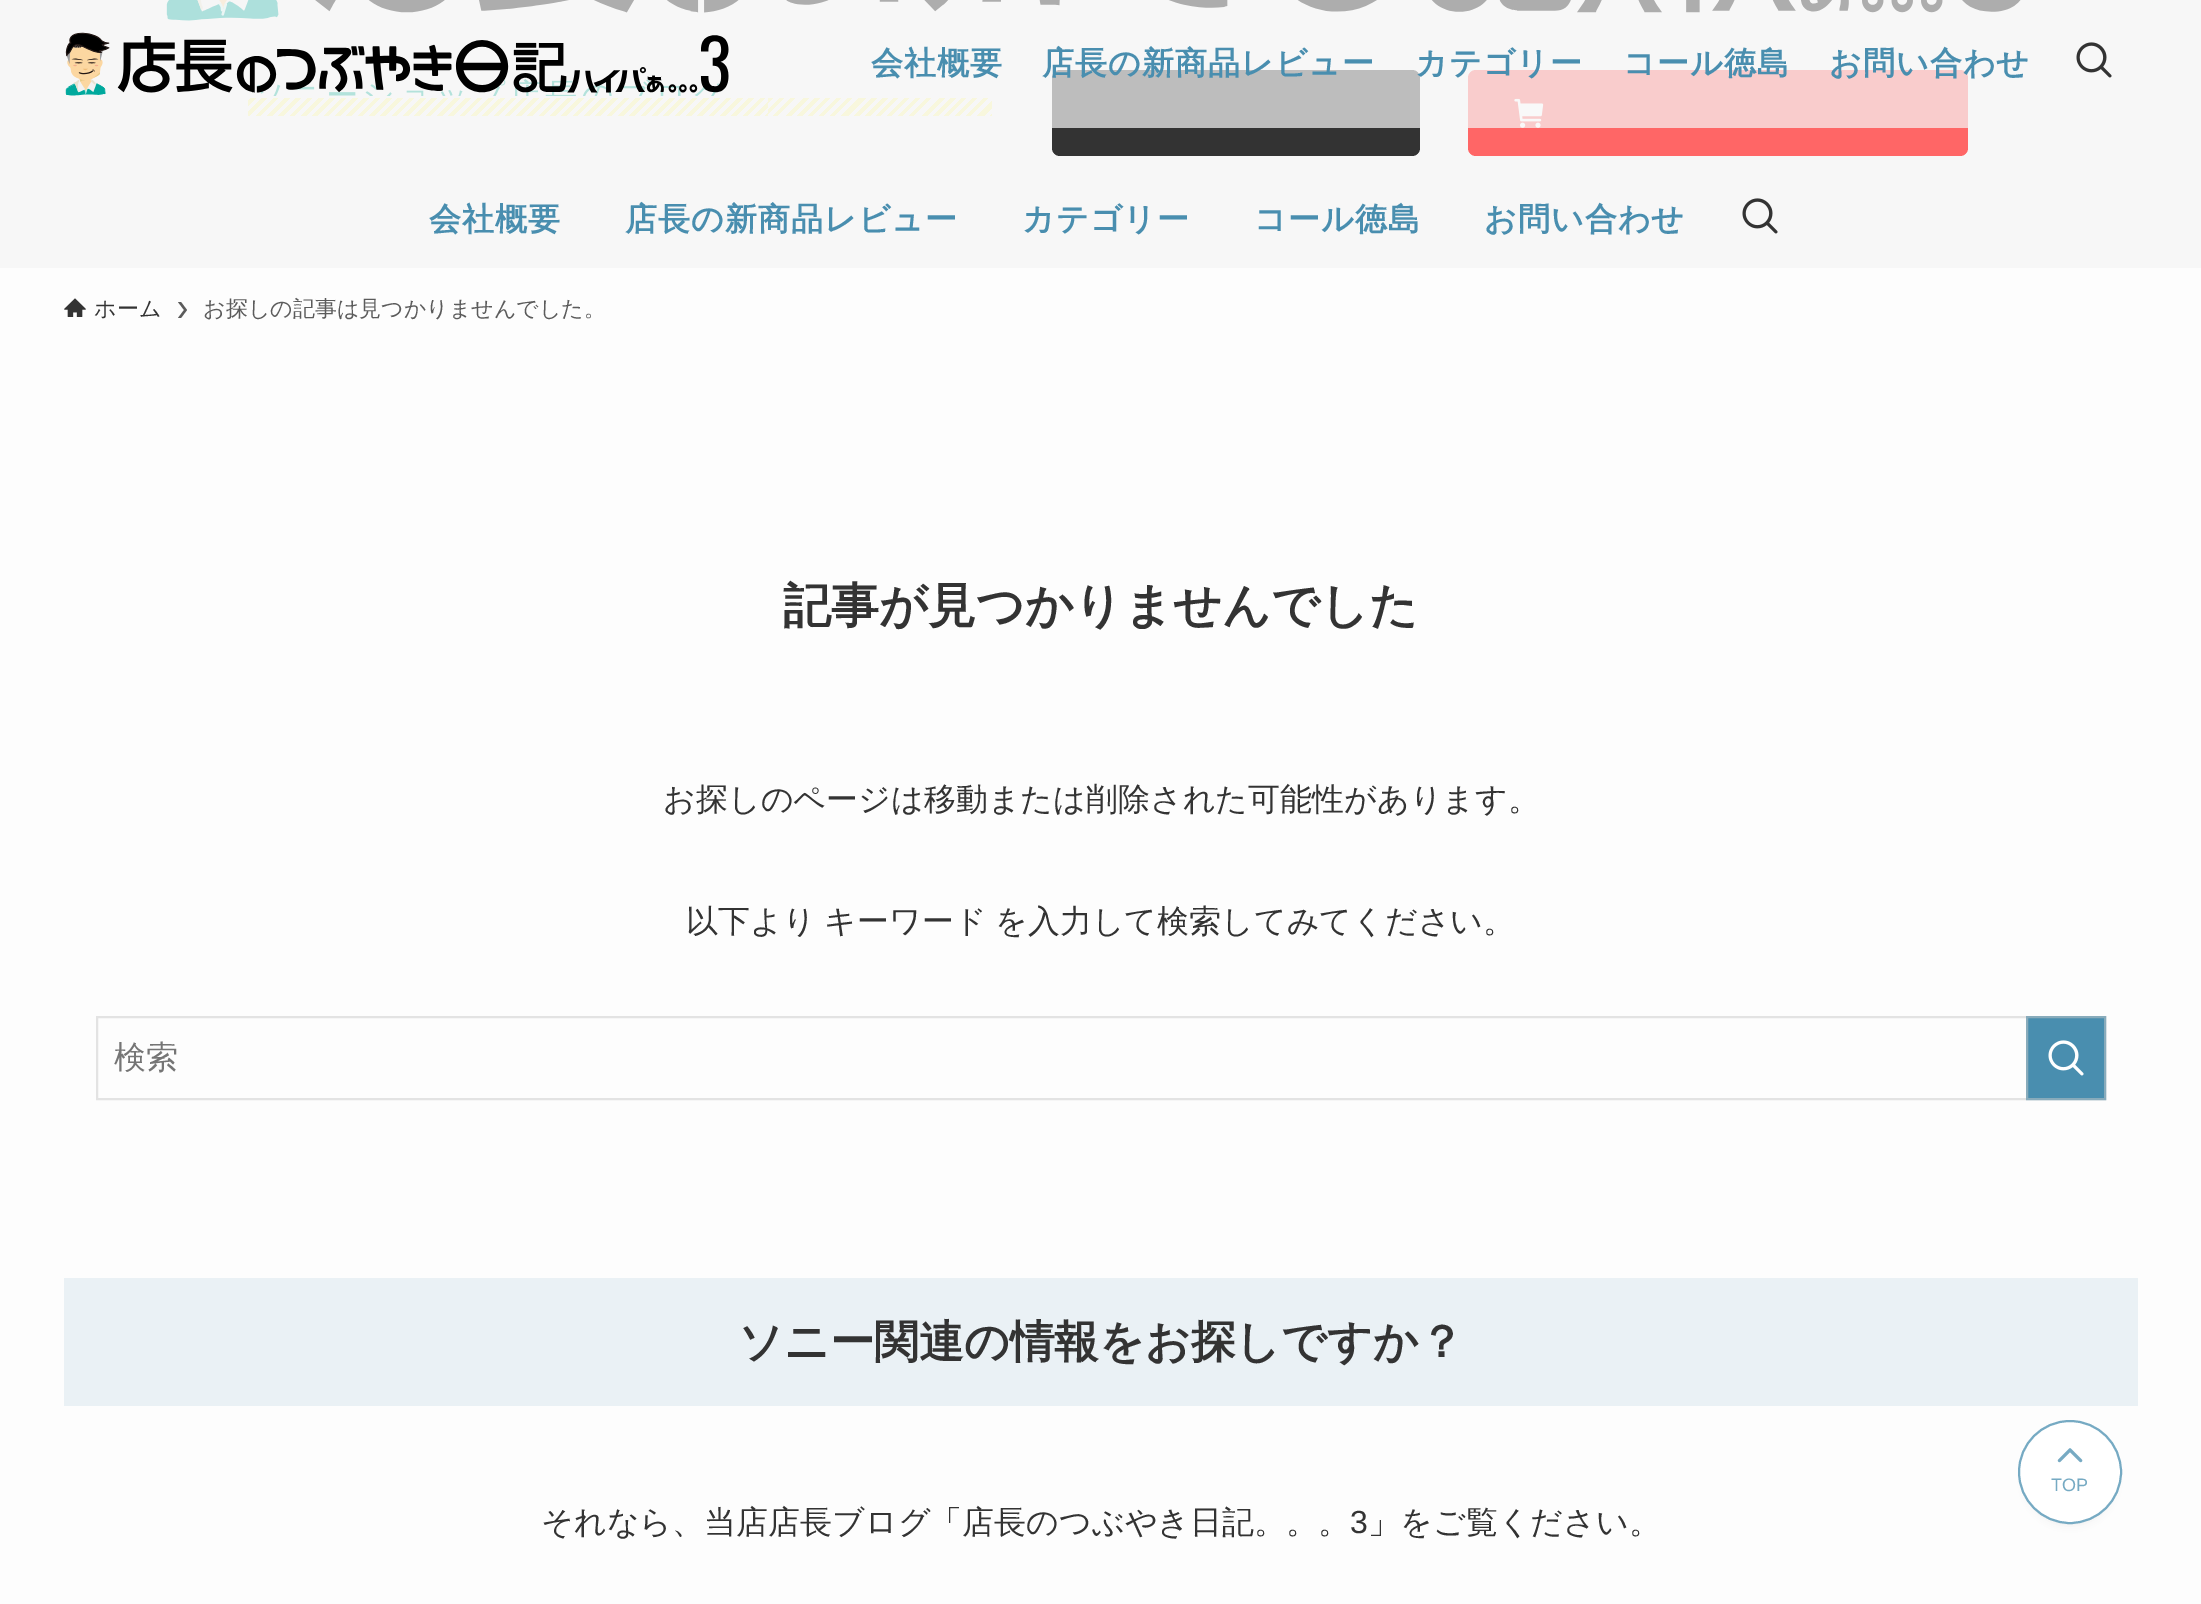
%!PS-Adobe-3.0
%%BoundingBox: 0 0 2201 1604
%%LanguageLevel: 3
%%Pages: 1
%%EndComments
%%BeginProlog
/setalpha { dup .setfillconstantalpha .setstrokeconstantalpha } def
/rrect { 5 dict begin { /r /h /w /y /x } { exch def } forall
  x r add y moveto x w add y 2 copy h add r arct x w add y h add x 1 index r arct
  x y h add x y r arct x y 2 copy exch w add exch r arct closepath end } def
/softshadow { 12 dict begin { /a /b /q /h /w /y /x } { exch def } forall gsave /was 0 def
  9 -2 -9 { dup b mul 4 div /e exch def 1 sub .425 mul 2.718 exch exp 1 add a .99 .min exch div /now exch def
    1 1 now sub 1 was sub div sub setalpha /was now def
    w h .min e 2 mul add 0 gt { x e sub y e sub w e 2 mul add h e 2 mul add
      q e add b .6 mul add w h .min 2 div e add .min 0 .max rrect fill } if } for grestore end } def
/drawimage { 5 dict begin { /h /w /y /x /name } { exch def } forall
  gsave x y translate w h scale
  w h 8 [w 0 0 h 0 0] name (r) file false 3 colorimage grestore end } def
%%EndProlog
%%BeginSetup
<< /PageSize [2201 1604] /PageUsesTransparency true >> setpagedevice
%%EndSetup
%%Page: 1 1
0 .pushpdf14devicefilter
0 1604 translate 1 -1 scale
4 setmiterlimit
0.992 setgray
0 0 2201 1604 rectfill
0.969 setgray
0 0 2201 268 rectfill
(images/3.raw) 166 0 1855 21 drawimage
gsave newpath 248 98 moveto 768 98 lineto 768 116 lineto 248 116 lineto closepath clip newpath
<< /ShadingType 2 /ColorSpace /DeviceRGB /Coords [649 260 366 -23] /Extend [true true] /Function << /FunctionType 3 /Domain [0 1] /Functions [<< /FunctionType 2 /Domain [0 1] /C0 [0.988 0.965 0.624] /C1 [0.988 0.965 0.624] /N 1 >> << /FunctionType 2 /Domain [0 1] /C0 [0.969 0.969 0.969] /C1 [0.969 0.969 0.969] /N 1 >> << /FunctionType 2 /Domain [0 1] /C0 [0.988 0.965 0.624] /C1 [0.988 0.965 0.624] /N 1 >> << /FunctionType 2 /Domain [0 1] /C0 [0.969 0.969 0.969] /C1 [0.969 0.969 0.969] /N 1 >> << /FunctionType 2 /Domain [0 1] /C0 [0.988 0.965 0.624] /C1 [0.988 0.965 0.624] /N 1 >> << /FunctionType 2 /Domain [0 1] /C0 [0.969 0.969 0.969] /C1 [0.969 0.969 0.969] /N 1 >> << /FunctionType 2 /Domain [0 1] /C0 [0.988 0.965 0.624] /C1 [0.988 0.965 0.624] /N 1 >> << /FunctionType 2 /Domain [0 1] /C0 [0.969 0.969 0.969] /C1 [0.969 0.969 0.969] /N 1 >> << /FunctionType 2 /Domain [0 1] /C0 [0.988 0.965 0.624] /C1 [0.988 0.965 0.624] /N 1 >> << /FunctionType 2 /Domain [0 1] /C0 [0.969 0.969 0.969] /C1 [0.969 0.969 0.969] /N 1 >> << /FunctionType 2 /Domain [0 1] /C0 [0.988 0.965 0.624] /C1 [0.988 0.965 0.624] /N 1 >> << /FunctionType 2 /Domain [0 1] /C0 [0.969 0.969 0.969] /C1 [0.969 0.969 0.969] /N 1 >> << /FunctionType 2 /Domain [0 1] /C0 [0.988 0.965 0.624] /C1 [0.988 0.965 0.624] /N 1 >> << /FunctionType 2 /Domain [0 1] /C0 [0.969 0.969 0.969] /C1 [0.969 0.969 0.969] /N 1 >> << /FunctionType 2 /Domain [0 1] /C0 [0.988 0.965 0.624] /C1 [0.988 0.965 0.624] /N 1 >> << /FunctionType 2 /Domain [0 1] /C0 [0.969 0.969 0.969] /C1 [0.969 0.969 0.969] /N 1 >> << /FunctionType 2 /Domain [0 1] /C0 [0.988 0.965 0.624] /C1 [0.988 0.965 0.624] /N 1 >> << /FunctionType 2 /Domain [0 1] /C0 [0.969 0.969 0.969] /C1 [0.969 0.969 0.969] /N 1 >> << /FunctionType 2 /Domain [0 1] /C0 [0.988 0.965 0.624] /C1 [0.988 0.965 0.624] /N 1 >> << /FunctionType 2 /Domain [0 1] /C0 [0.969 0.969 0.969] /C1 [0.969 0.969 0.969] /N 1 >> << /FunctionType 2 /Domain [0 1] /C0 [0.988 0.965 0.624] /C1 [0.988 0.965 0.624] /N 1 >> << /FunctionType 2 /Domain [0 1] /C0 [0.969 0.969 0.969] /C1 [0.969 0.969 0.969] /N 1 >> << /FunctionType 2 /Domain [0 1] /C0 [0.988 0.965 0.624] /C1 [0.988 0.965 0.624] /N 1 >> << /FunctionType 2 /Domain [0 1] /C0 [0.969 0.969 0.969] /C1 [0.969 0.969 0.969] /N 1 >> << /FunctionType 2 /Domain [0 1] /C0 [0.988 0.965 0.624] /C1 [0.988 0.965 0.624] /N 1 >> << /FunctionType 2 /Domain [0 1] /C0 [0.969 0.969 0.969] /C1 [0.969 0.969 0.969] /N 1 >> << /FunctionType 2 /Domain [0 1] /C0 [0.988 0.965 0.624] /C1 [0.988 0.965 0.624] /N 1 >> << /FunctionType 2 /Domain [0 1] /C0 [0.969 0.969 0.969] /C1 [0.969 0.969 0.969] /N 1 >> << /FunctionType 2 /Domain [0 1] /C0 [0.988 0.965 0.624] /C1 [0.988 0.965 0.624] /N 1 >> << /FunctionType 2 /Domain [0 1] /C0 [0.969 0.969 0.969] /C1 [0.969 0.969 0.969] /N 1 >> << /FunctionType 2 /Domain [0 1] /C0 [0.988 0.965 0.624] /C1 [0.988 0.965 0.624] /N 1 >> << /FunctionType 2 /Domain [0 1] /C0 [0.969 0.969 0.969] /C1 [0.969 0.969 0.969] /N 1 >> << /FunctionType 2 /Domain [0 1] /C0 [0.988 0.965 0.624] /C1 [0.988 0.965 0.624] /N 1 >> << /FunctionType 2 /Domain [0 1] /C0 [0.969 0.969 0.969] /C1 [0.969 0.969 0.969] /N 1 >> << /FunctionType 2 /Domain [0 1] /C0 [0.988 0.965 0.624] /C1 [0.988 0.965 0.624] /N 1 >> << /FunctionType 2 /Domain [0 1] /C0 [0.969 0.969 0.969] /C1 [0.969 0.969 0.969] /N 1 >> << /FunctionType 2 /Domain [0 1] /C0 [0.988 0.965 0.624] /C1 [0.988 0.965 0.624] /N 1 >> << /FunctionType 2 /Domain [0 1] /C0 [0.969 0.969 0.969] /C1 [0.969 0.969 0.969] /N 1 >> << /FunctionType 2 /Domain [0 1] /C0 [0.988 0.965 0.624] /C1 [0.988 0.965 0.624] /N 1 >> << /FunctionType 2 /Domain [0 1] /C0 [0.969 0.969 0.969] /C1 [0.969 0.969 0.969] /N 1 >> << /FunctionType 2 /Domain [0 1] /C0 [0.988 0.965 0.624] /C1 [0.988 0.965 0.624] /N 1 >> << /FunctionType 2 /Domain [0 1] /C0 [0.969 0.969 0.969] /C1 [0.969 0.969 0.969] /N 1 >> << /FunctionType 2 /Domain [0 1] /C0 [0.988 0.965 0.624] /C1 [0.988 0.965 0.624] /N 1 >> << /FunctionType 2 /Domain [0 1] /C0 [0.969 0.969 0.969] /C1 [0.969 0.969 0.969] /N 1 >> << /FunctionType 2 /Domain [0 1] /C0 [0.988 0.965 0.624] /C1 [0.988 0.965 0.624] /N 1 >> << /FunctionType 2 /Domain [0 1] /C0 [0.969 0.969 0.969] /C1 [0.969 0.969 0.969] /N 1 >> << /FunctionType 2 /Domain [0 1] /C0 [0.988 0.965 0.624] /C1 [0.988 0.965 0.624] /N 1 >> << /FunctionType 2 /Domain [0 1] /C0 [0.969 0.969 0.969] /C1 [0.969 0.969 0.969] /N 1 >> << /FunctionType 2 /Domain [0 1] /C0 [0.988 0.965 0.624] /C1 [0.988 0.965 0.624] /N 1 >> << /FunctionType 2 /Domain [0 1] /C0 [0.969 0.969 0.969] /C1 [0.969 0.969 0.969] /N 1 >> << /FunctionType 2 /Domain [0 1] /C0 [0.988 0.965 0.624] /C1 [0.988 0.965 0.624] /N 1 >> << /FunctionType 2 /Domain [0 1] /C0 [0.969 0.969 0.969] /C1 [0.969 0.969 0.969] /N 1 >> << /FunctionType 2 /Domain [0 1] /C0 [0.988 0.965 0.624] /C1 [0.988 0.965 0.624] /N 1 >> << /FunctionType 2 /Domain [0 1] /C0 [0.969 0.969 0.969] /C1 [0.969 0.969 0.969] /N 1 >> << /FunctionType 2 /Domain [0 1] /C0 [0.988 0.965 0.624] /C1 [0.988 0.965 0.624] /N 1 >> << /FunctionType 2 /Domain [0 1] /C0 [0.969 0.969 0.969] /C1 [0.969 0.969 0.969] /N 1 >> << /FunctionType 2 /Domain [0 1] /C0 [0.988 0.965 0.624] /C1 [0.988 0.965 0.624] /N 1 >> << /FunctionType 2 /Domain [0 1] /C0 [0.969 0.969 0.969] /C1 [0.969 0.969 0.969] /N 1 >> << /FunctionType 2 /Domain [0 1] /C0 [0.988 0.965 0.624] /C1 [0.988 0.965 0.624] /N 1 >> << /FunctionType 2 /Domain [0 1] /C0 [0.969 0.969 0.969] /C1 [0.969 0.969 0.969] /N 1 >> << /FunctionType 2 /Domain [0 1] /C0 [0.988 0.965 0.624] /C1 [0.988 0.965 0.624] /N 1 >> << /FunctionType 2 /Domain [0 1] /C0 [0.969 0.969 0.969] /C1 [0.969 0.969 0.969] /N 1 >> << /FunctionType 2 /Domain [0 1] /C0 [0.988 0.965 0.624] /C1 [0.988 0.965 0.624] /N 1 >> << /FunctionType 2 /Domain [0 1] /C0 [0.969 0.969 0.969] /C1 [0.969 0.969 0.969] /N 1 >> << /FunctionType 2 /Domain [0 1] /C0 [0.988 0.965 0.624] /C1 [0.988 0.965 0.624] /N 1 >> << /FunctionType 2 /Domain [0 1] /C0 [0.969 0.969 0.969] /C1 [0.969 0.969 0.969] /N 1 >> << /FunctionType 2 /Domain [0 1] /C0 [0.988 0.965 0.624] /C1 [0.988 0.965 0.624] /N 1 >> << /FunctionType 2 /Domain [0 1] /C0 [0.969 0.969 0.969] /C1 [0.969 0.969 0.969] /N 1 >> << /FunctionType 2 /Domain [0 1] /C0 [0.988 0.965 0.624] /C1 [0.988 0.965 0.624] /N 1 >> << /FunctionType 2 /Domain [0 1] /C0 [0.969 0.969 0.969] /C1 [0.969 0.969 0.969] /N 1 >> << /FunctionType 2 /Domain [0 1] /C0 [0.988 0.965 0.624] /C1 [0.988 0.965 0.624] /N 1 >> << /FunctionType 2 /Domain [0 1] /C0 [0.969 0.969 0.969] /C1 [0.969 0.969 0.969] /N 1 >> << /FunctionType 2 /Domain [0 1] /C0 [0.988 0.965 0.624] /C1 [0.988 0.965 0.624] /N 1 >> << /FunctionType 2 /Domain [0 1] /C0 [0.969 0.969 0.969] /C1 [0.969 0.969 0.969] /N 1 >> << /FunctionType 2 /Domain [0 1] /C0 [0.988 0.965 0.624] /C1 [0.988 0.965 0.624] /N 1 >> << /FunctionType 2 /Domain [0 1] /C0 [0.969 0.969 0.969] /C1 [0.969 0.969 0.969] /N 1 >> << /FunctionType 2 /Domain [0 1] /C0 [0.988 0.965 0.624] /C1 [0.988 0.965 0.624] /N 1 >> << /FunctionType 2 /Domain [0 1] /C0 [0.969 0.969 0.969] /C1 [0.969 0.969 0.969] /N 1 >> << /FunctionType 2 /Domain [0 1] /C0 [0.988 0.965 0.624] /C1 [0.988 0.965 0.624] /N 1 >> << /FunctionType 2 /Domain [0 1] /C0 [0.969 0.969 0.969] /C1 [0.969 0.969 0.969] /N 1 >> << /FunctionType 2 /Domain [0 1] /C0 [0.988 0.965 0.624] /C1 [0.988 0.965 0.624] /N 1 >> << /FunctionType 2 /Domain [0 1] /C0 [0.969 0.969 0.969] /C1 [0.969 0.969 0.969] /N 1 >> << /FunctionType 2 /Domain [0 1] /C0 [0.988 0.965 0.624] /C1 [0.988 0.965 0.624] /N 1 >> << /FunctionType 2 /Domain [0 1] /C0 [0.969 0.969 0.969] /C1 [0.969 0.969 0.969] /N 1 >> << /FunctionType 2 /Domain [0 1] /C0 [0.988 0.965 0.624] /C1 [0.988 0.965 0.624] /N 1 >> << /FunctionType 2 /Domain [0 1] /C0 [0.969 0.969 0.969] /C1 [0.969 0.969 0.969] /N 1 >> << /FunctionType 2 /Domain [0 1] /C0 [0.988 0.965 0.624] /C1 [0.988 0.965 0.624] /N 1 >> << /FunctionType 2 /Domain [0 1] /C0 [0.969 0.969 0.969] /C1 [0.969 0.969 0.969] /N 1 >> << /FunctionType 2 /Domain [0 1] /C0 [0.988 0.965 0.624] /C1 [0.988 0.965 0.624] /N 1 >> << /FunctionType 2 /Domain [0 1] /C0 [0.969 0.969 0.969] /C1 [0.969 0.969 0.969] /N 1 >> << /FunctionType 2 /Domain [0 1] /C0 [0.988 0.965 0.624] /C1 [0.988 0.965 0.624] /N 1 >> << /FunctionType 2 /Domain [0 1] /C0 [0.969 0.969 0.969] /C1 [0.969 0.969 0.969] /N 1 >> << /FunctionType 2 /Domain [0 1] /C0 [0.988 0.965 0.624] /C1 [0.988 0.965 0.624] /N 1 >> << /FunctionType 2 /Domain [0 1] /C0 [0.969 0.969 0.969] /C1 [0.969 0.969 0.969] /N 1 >> << /FunctionType 2 /Domain [0 1] /C0 [0.988 0.965 0.624] /C1 [0.988 0.965 0.624] /N 1 >> << /FunctionType 2 /Domain [0 1] /C0 [0.969 0.969 0.969] /C1 [0.969 0.969 0.969] /N 1 >> << /FunctionType 2 /Domain [0 1] /C0 [0.988 0.965 0.624] /C1 [0.988 0.965 0.624] /N 1 >> << /FunctionType 2 /Domain [0 1] /C0 [0.969 0.969 0.969] /C1 [0.969 0.969 0.969] /N 1 >> << /FunctionType 2 /Domain [0 1] /C0 [0.988 0.965 0.624] /C1 [0.988 0.965 0.624] /N 1 >> << /FunctionType 2 /Domain [0 1] /C0 [0.969 0.969 0.969] /C1 [0.969 0.969 0.969] /N 1 >>] /Bounds [0.01 0.02 0.03 0.04 0.05 0.06 0.07 0.08 0.09 0.1 0.11 0.12 0.13 0.14 0.15 0.16 0.17 0.18 0.19 0.2 0.21 0.22 0.23 0.24 0.25 0.26 0.27 0.28 0.29 0.3 0.31 0.32 0.33 0.34 0.35 0.36 0.37 0.38 0.39 0.4 0.41 0.42 0.43 0.44 0.45 0.46 0.47 0.48 0.49 0.5 0.51 0.52 0.53 0.54 0.55 0.56 0.57 0.58 0.59 0.6 0.61 0.62 0.63 0.64 0.65 0.66 0.67 0.68 0.69 0.7 0.71 0.72 0.73 0.74 0.75 0.76 0.77 0.78 0.79 0.8 0.81 0.82 0.83 0.84 0.85 0.86 0.87 0.88 0.89 0.9 0.91 0.92 0.93 0.94 0.95 0.96 0.97 0.98 0.99] /Encode [0 1 0 1 0 1 0 1 0 1 0 1 0 1 0 1 0 1 0 1 0 1 0 1 0 1 0 1 0 1 0 1 0 1 0 1 0 1 0 1 0 1 0 1 0 1 0 1 0 1 0 1 0 1 0 1 0 1 0 1 0 1 0 1 0 1 0 1 0 1 0 1 0 1 0 1 0 1 0 1 0 1 0 1 0 1 0 1 0 1 0 1 0 1 0 1 0 1 0 1 0 1 0 1 0 1 0 1 0 1 0 1 0 1 0 1 0 1 0 1 0 1 0 1 0 1 0 1 0 1 0 1 0 1 0 1 0 1 0 1 0 1 0 1 0 1 0 1 0 1 0 1 0 1 0 1 0 1 0 1 0 1 0 1 0 1 0 1 0 1 0 1 0 1 0 1 0 1 0 1 0 1 0 1 0 1 0 1 0 1 0 1 0 1 0 1 0 1 0 1] >> >> shfill grestore
gsave newpath 768 98 moveto 992 98 lineto 992 116 lineto 768 116 lineto closepath clip newpath
<< /ShadingType 2 /ColorSpace /DeviceRGB /Coords [947 186 811 50] /Extend [true true] /Function << /FunctionType 3 /Domain [0 1] /Functions [<< /FunctionType 2 /Domain [0 1] /C0 [0.988 0.965 0.624] /C1 [0.988 0.965 0.624] /N 1 >> << /FunctionType 2 /Domain [0 1] /C0 [0.969 0.969 0.969] /C1 [0.969 0.969 0.969] /N 1 >> << /FunctionType 2 /Domain [0 1] /C0 [0.988 0.965 0.624] /C1 [0.988 0.965 0.624] /N 1 >> << /FunctionType 2 /Domain [0 1] /C0 [0.969 0.969 0.969] /C1 [0.969 0.969 0.969] /N 1 >> << /FunctionType 2 /Domain [0 1] /C0 [0.988 0.965 0.624] /C1 [0.988 0.965 0.624] /N 1 >> << /FunctionType 2 /Domain [0 1] /C0 [0.969 0.969 0.969] /C1 [0.969 0.969 0.969] /N 1 >> << /FunctionType 2 /Domain [0 1] /C0 [0.988 0.965 0.624] /C1 [0.988 0.965 0.624] /N 1 >> << /FunctionType 2 /Domain [0 1] /C0 [0.969 0.969 0.969] /C1 [0.969 0.969 0.969] /N 1 >> << /FunctionType 2 /Domain [0 1] /C0 [0.988 0.965 0.624] /C1 [0.988 0.965 0.624] /N 1 >> << /FunctionType 2 /Domain [0 1] /C0 [0.969 0.969 0.969] /C1 [0.969 0.969 0.969] /N 1 >> << /FunctionType 2 /Domain [0 1] /C0 [0.988 0.965 0.624] /C1 [0.988 0.965 0.624] /N 1 >> << /FunctionType 2 /Domain [0 1] /C0 [0.969 0.969 0.969] /C1 [0.969 0.969 0.969] /N 1 >> << /FunctionType 2 /Domain [0 1] /C0 [0.988 0.965 0.624] /C1 [0.988 0.965 0.624] /N 1 >> << /FunctionType 2 /Domain [0 1] /C0 [0.969 0.969 0.969] /C1 [0.969 0.969 0.969] /N 1 >> << /FunctionType 2 /Domain [0 1] /C0 [0.988 0.965 0.624] /C1 [0.988 0.965 0.624] /N 1 >> << /FunctionType 2 /Domain [0 1] /C0 [0.969 0.969 0.969] /C1 [0.969 0.969 0.969] /N 1 >> << /FunctionType 2 /Domain [0 1] /C0 [0.988 0.965 0.624] /C1 [0.988 0.965 0.624] /N 1 >> << /FunctionType 2 /Domain [0 1] /C0 [0.969 0.969 0.969] /C1 [0.969 0.969 0.969] /N 1 >> << /FunctionType 2 /Domain [0 1] /C0 [0.988 0.965 0.624] /C1 [0.988 0.965 0.624] /N 1 >> << /FunctionType 2 /Domain [0 1] /C0 [0.969 0.969 0.969] /C1 [0.969 0.969 0.969] /N 1 >> << /FunctionType 2 /Domain [0 1] /C0 [0.988 0.965 0.624] /C1 [0.988 0.965 0.624] /N 1 >> << /FunctionType 2 /Domain [0 1] /C0 [0.969 0.969 0.969] /C1 [0.969 0.969 0.969] /N 1 >> << /FunctionType 2 /Domain [0 1] /C0 [0.988 0.965 0.624] /C1 [0.988 0.965 0.624] /N 1 >> << /FunctionType 2 /Domain [0 1] /C0 [0.969 0.969 0.969] /C1 [0.969 0.969 0.969] /N 1 >> << /FunctionType 2 /Domain [0 1] /C0 [0.988 0.965 0.624] /C1 [0.988 0.965 0.624] /N 1 >> << /FunctionType 2 /Domain [0 1] /C0 [0.969 0.969 0.969] /C1 [0.969 0.969 0.969] /N 1 >> << /FunctionType 2 /Domain [0 1] /C0 [0.988 0.965 0.624] /C1 [0.988 0.965 0.624] /N 1 >> << /FunctionType 2 /Domain [0 1] /C0 [0.969 0.969 0.969] /C1 [0.969 0.969 0.969] /N 1 >> << /FunctionType 2 /Domain [0 1] /C0 [0.988 0.965 0.624] /C1 [0.988 0.965 0.624] /N 1 >> << /FunctionType 2 /Domain [0 1] /C0 [0.969 0.969 0.969] /C1 [0.969 0.969 0.969] /N 1 >> << /FunctionType 2 /Domain [0 1] /C0 [0.988 0.965 0.624] /C1 [0.988 0.965 0.624] /N 1 >> << /FunctionType 2 /Domain [0 1] /C0 [0.969 0.969 0.969] /C1 [0.969 0.969 0.969] /N 1 >> << /FunctionType 2 /Domain [0 1] /C0 [0.988 0.965 0.624] /C1 [0.988 0.965 0.624] /N 1 >> << /FunctionType 2 /Domain [0 1] /C0 [0.969 0.969 0.969] /C1 [0.969 0.969 0.969] /N 1 >> << /FunctionType 2 /Domain [0 1] /C0 [0.988 0.965 0.624] /C1 [0.988 0.965 0.624] /N 1 >> << /FunctionType 2 /Domain [0 1] /C0 [0.969 0.969 0.969] /C1 [0.969 0.969 0.969] /N 1 >> << /FunctionType 2 /Domain [0 1] /C0 [0.988 0.965 0.624] /C1 [0.988 0.965 0.624] /N 1 >> << /FunctionType 2 /Domain [0 1] /C0 [0.969 0.969 0.969] /C1 [0.969 0.969 0.969] /N 1 >> << /FunctionType 2 /Domain [0 1] /C0 [0.988 0.965 0.624] /C1 [0.988 0.965 0.624] /N 1 >> << /FunctionType 2 /Domain [0 1] /C0 [0.969 0.969 0.969] /C1 [0.969 0.969 0.969] /N 1 >> << /FunctionType 2 /Domain [0 1] /C0 [0.988 0.965 0.624] /C1 [0.988 0.965 0.624] /N 1 >> << /FunctionType 2 /Domain [0 1] /C0 [0.969 0.969 0.969] /C1 [0.969 0.969 0.969] /N 1 >> << /FunctionType 2 /Domain [0 1] /C0 [0.988 0.965 0.624] /C1 [0.988 0.965 0.624] /N 1 >> << /FunctionType 2 /Domain [0 1] /C0 [0.969 0.969 0.969] /C1 [0.969 0.969 0.969] /N 1 >> << /FunctionType 2 /Domain [0 1] /C0 [0.988 0.965 0.624] /C1 [0.988 0.965 0.624] /N 1 >> << /FunctionType 2 /Domain [0 1] /C0 [0.969 0.969 0.969] /C1 [0.969 0.969 0.969] /N 1 >> << /FunctionType 2 /Domain [0 1] /C0 [0.988 0.965 0.624] /C1 [0.988 0.965 0.624] /N 1 >> << /FunctionType 2 /Domain [0 1] /C0 [0.969 0.969 0.969] /C1 [0.969 0.969 0.969] /N 1 >>] /Bounds [0.02 0.04 0.06 0.08 0.1 0.12 0.15 0.17 0.19 0.21 0.23 0.25 0.27 0.29 0.31 0.33 0.35 0.38 0.4 0.42 0.44 0.46 0.48 0.5 0.52 0.54 0.56 0.58 0.6 0.62 0.65 0.67 0.69 0.71 0.73 0.75 0.77 0.79 0.81 0.83 0.85 0.88 0.9 0.92 0.94 0.96 0.98] /Encode [0 1 0 1 0 1 0 1 0 1 0 1 0 1 0 1 0 1 0 1 0 1 0 1 0 1 0 1 0 1 0 1 0 1 0 1 0 1 0 1 0 1 0 1 0 1 0 1 0 1 0 1 0 1 0 1 0 1 0 1 0 1 0 1 0 1 0 1 0 1 0 1 0 1 0 1 0 1 0 1 0 1 0 1 0 1 0 1 0 1 0 1 0 1 0 1] >> >> shfill grestore
0.2 setgray
1052 70 368 86 8 rrect fill
1 0.4 0.4 setrgbcolor
1468 70 500 86 8 rrect fill
(images/4.raw) 1514 98 30 30 drawimage
0.7 setalpha
0.969 setgray
166 0 1855 128 rectfill
1 setalpha
(images/1.raw) 65 32 664 64 drawimage
(images/2.raw) 2076 42 36 36 drawimage
(images/5.raw) 1742 198 36 36 drawimage
(images/6.raw) 64 298 22 19 drawimage
0.357 setgray
newpath 181 302 moveto 178 302 lineto 184 310 lineto 178 318 lineto 181 318 lineto 187 310 lineto closepath fill
0.89 setgray
2 setlinewidth
97 1017 2008 82 rectstroke
0.286 0.557 0.686 setrgbcolor
newpath 2027 1017 moveto 2105 1017 lineto 2105 1099 lineto 2027 1099 lineto closepath gsave fill grestore
0.533 0.671 0.733 setrgbcolor
stroke
(images/7.raw) 2048 1040 36 36 drawimage
0.918 0.945 0.961 setrgbcolor
64 1278 2074 128 rectfill
0.247 setgray
2026 1436 88 88 44 4 0.1 softshadow
1 setgray
newpath 2070 1472 51 0 360 arc closepath gsave fill grestore
0.463 0.667 0.765 setrgbcolor
stroke
(images/8.raw) 2057 1448 26 15 drawimage
/WenQuanYiZenHei-Bold [32 0 0 -32 0 0] selectfont
0.286 0.557 0.686 setrgbcolor
871 74 moveto 1 0 (会社概要) ashow
1042 74 moveto 1 0 (店長の新商品レビュー) ashow
1415 74 moveto 1 0 (カテゴリー) ashow
1623 74 moveto 1 0 (コール徳島) ashow
1829 74 moveto 1 0 (お問い合わせ) ashow
429 230 moveto 1 0 (会社概要) ashow
625 230 moveto 1 0 (店長の新商品レビュー) ashow
1022 230 moveto 1 0 (カテゴリー) ashow
1254 230 moveto 1 0 (コール徳島) ashow
1484 230 moveto 1 0 (お問い合わせ) ashow
/WenQuanYiZenHei-Medium [22 0 0 -22 0 0] selectfont
0.2 setgray
94 316 moveto (ホーム) show
0.357 setgray
203 316 moveto (お探しの記事は見つかりませんでした。) show
/WenQuanYiZenHei-Bold [48 0 0 -48 0 0] selectfont
0.2 setgray
783 622 moveto (記事が見つかりませんでした) show
/WenQuanYiZenHei-Medium [32 0 0 -32 0 0] selectfont
663 810 moveto (お探しのページは移動または削除された可能性があります。) show
686 932 moveto -1 0 32 (以下より キーワード を入力して検索してみてください。) widthshow
0.459 setgray
114 1068 moveto (検索) show
/WenQuanYiZenHei-Bold [44.75 0 0 -44.75 0 0] selectfont
0.2 setgray
738 1357 moveto (ソニー関連の情報をお探しですか？) show
/WenQuanYiZenHei-Medium [32 0 0 -32 0 0] selectfont
541 1533 moveto (それなら、当店店長ブログ「店長のつぶやき日記。。。) show
/LiberationSans-Regular [32 0 0 -32 0 0] selectfont
1350 1533 moveto (3) show
/WenQuanYiZenHei-Medium [32 0 0 -32 0 0] selectfont
1368 1533 moveto (」をご覧ください。) show
/LiberationSans-Regular [18 0 0 -18 0 0] selectfont
0.463 0.667 0.765 setrgbcolor
2051 1491 moveto (TOP) show
.poppdf14devicefilter showpage
%%EOF
